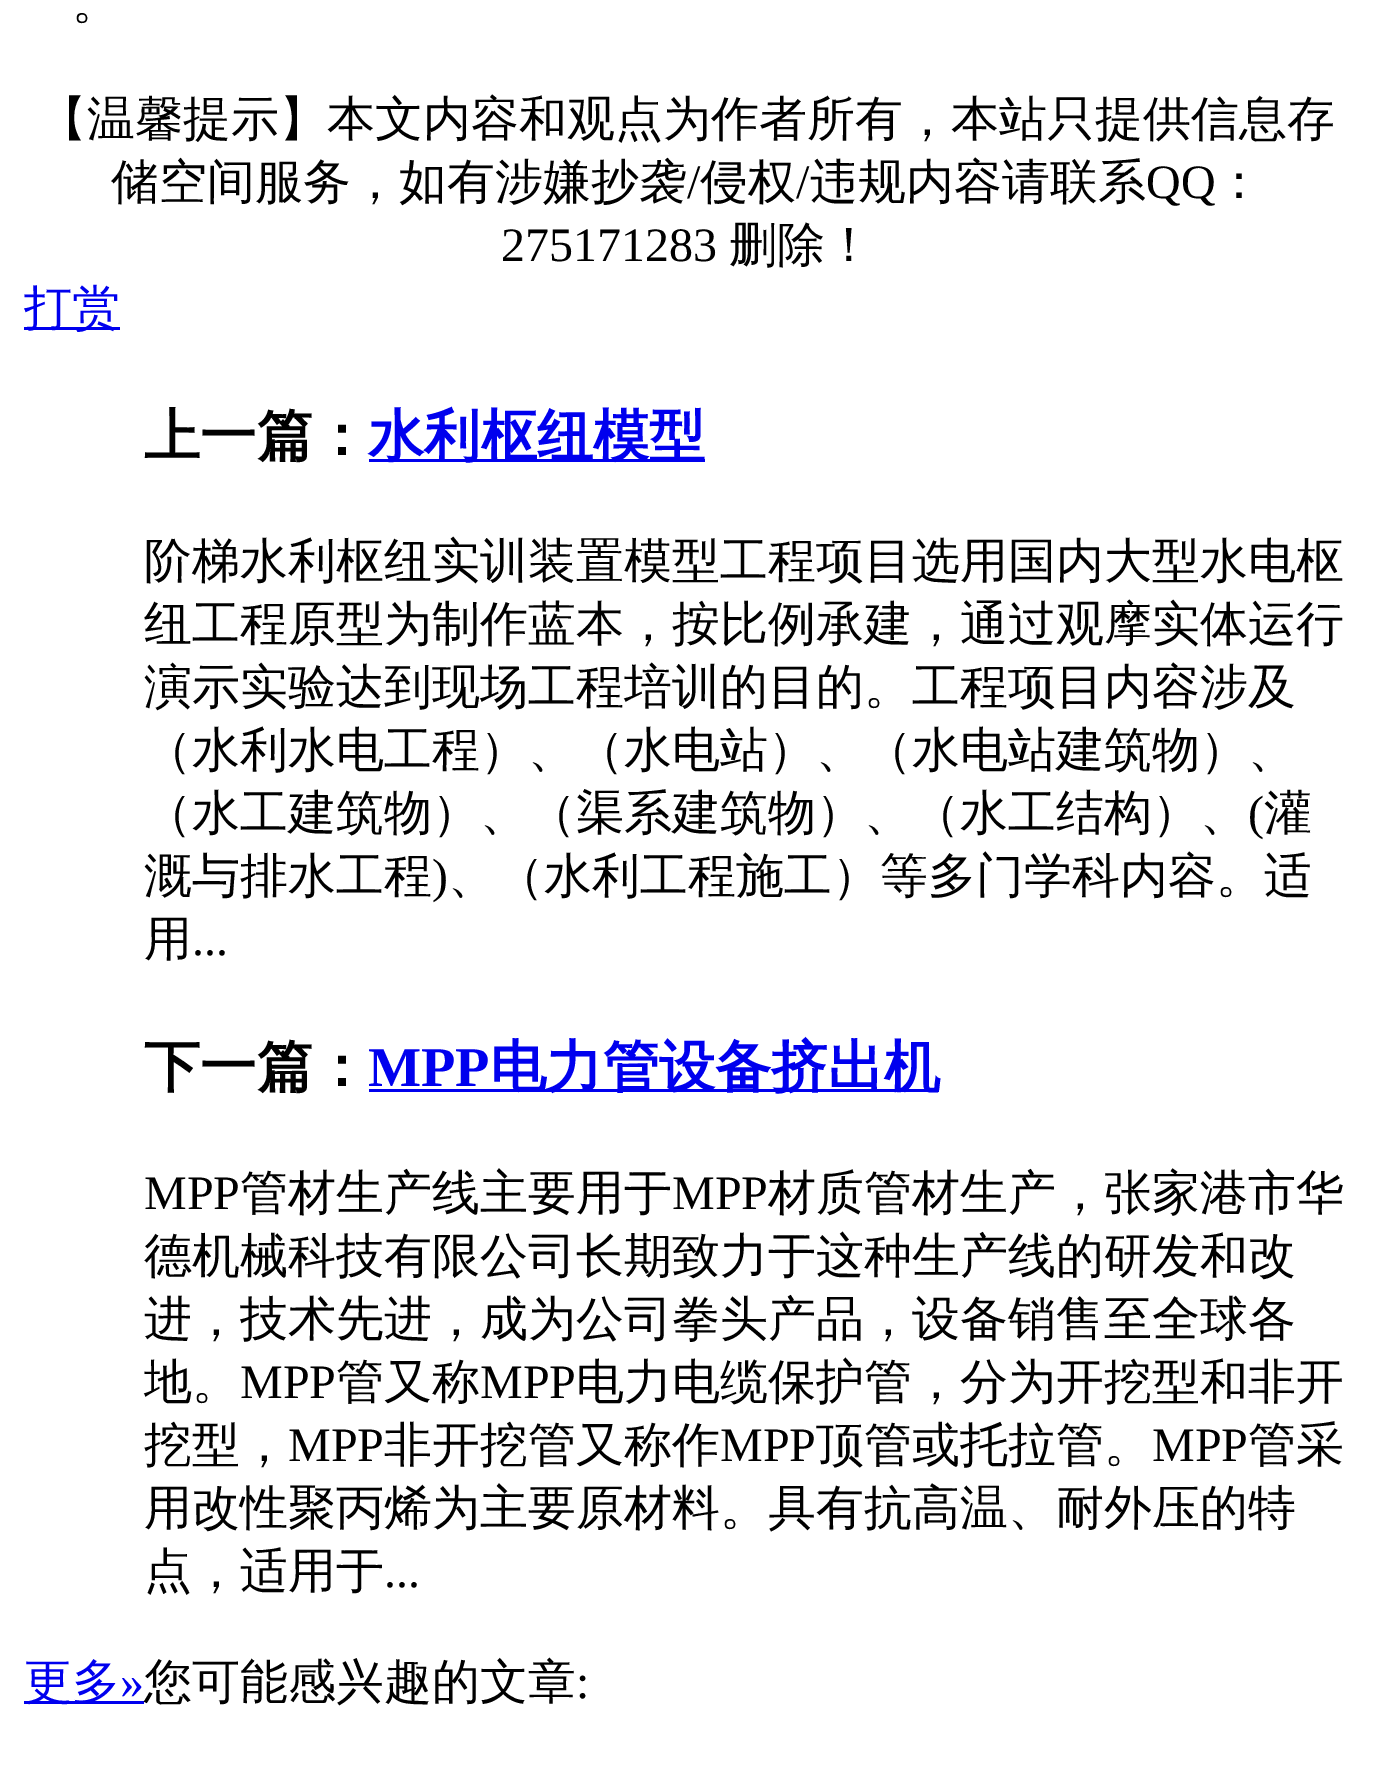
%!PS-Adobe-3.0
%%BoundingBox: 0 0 1373 1768
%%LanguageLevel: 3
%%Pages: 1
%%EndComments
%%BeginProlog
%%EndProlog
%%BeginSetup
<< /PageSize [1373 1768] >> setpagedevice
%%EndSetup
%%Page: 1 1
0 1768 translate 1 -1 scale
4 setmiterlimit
1 setgray
0 0 1373 1768 rectfill
0 0 0.933 setrgbcolor
24 327 96 3 rectfill
369 459 336 3 rectfill
369 1089 570 3 rectfill
24 1701 120 3 rectfill
/WenQuanYiZenHei-Medium [48 0 0 -48 0 0] selectfont
0 setgray
72 18 moveto (。) show
39 135 moveto (【温馨提示】本文内容和观点为作者所有，本站只提供信息存) show
111 198 moveto (储空间服务，如有涉嫌抄袭) show
/LiberationSerif-Regular [48 0 0 -48 0 0] selectfont
687 198 moveto (/) show
/WenQuanYiZenHei-Medium [48 0 0 -48 0 0] selectfont
700 198 moveto (侵权) show
/LiberationSerif-Regular [48 0 0 -48 0 0] selectfont
796 198 moveto (/) show
/WenQuanYiZenHei-Medium [48 0 0 -48 0 0] selectfont
810 198 moveto (违规内容请联系) show
/LiberationSerif-Regular [48 0 0 -48 0 0] selectfont
1146 198 moveto (QQ) show
/WenQuanYiZenHei-Medium [48 0 0 -48 0 0] selectfont
1215 198 moveto (：) show
/LiberationSerif-Regular [48 0 0 -48 0 0] selectfont
501 261 moveto (275171283) show
/WenQuanYiZenHei-Medium [48 0 0 -48 0 0] selectfont
729 261 moveto (删除！) show
0 0 0.933 setrgbcolor
24 324 moveto (打赏) show
/WenQuanYiZenHei-Bold [56.25 0 0 -56.25 0 0] selectfont
0 setgray
144 455 moveto (上一篇：) show
0 0 0.933 setrgbcolor
368 455 moveto (水利枢纽模型) show
/WenQuanYiZenHei-Medium [48 0 0 -48 0 0] selectfont
0 setgray
144 577 moveto (阶梯水利枢纽实训装置模型工程项目选用国内大型水电枢) show
144 640 moveto (纽工程原型为制作蓝本，按比例承建，通过观摩实体运行) show
144 703 moveto (演示实验达到现场工程培训的目的。工程项目内容涉及) show
144 766 moveto (（水利水电工程）、（水电站）、（水电站建筑物）、) show
144 829 moveto (（水工建筑物）、（渠系建筑物）、（水工结构）、) show
/LiberationSerif-Regular [48 0 0 -48 0 0] selectfont
1248 829 moveto (\() show
/WenQuanYiZenHei-Medium [48 0 0 -48 0 0] selectfont
1264 829 moveto (灌) show
144 892 moveto (溉与排水工程) show
/LiberationSerif-Regular [48 0 0 -48 0 0] selectfont
432 892 moveto (\)) show
/WenQuanYiZenHei-Medium [48 0 0 -48 0 0] selectfont
448 892 moveto (、（水利工程施工）等多门学科内容。适) show
144 955 moveto (用) show
/LiberationSerif-Regular [48 0 0 -48 0 0] selectfont
192 955 moveto (...) show
/WenQuanYiZenHei-Bold [56.25 0 0 -56.25 0 0] selectfont
144 1086 moveto (下一篇：) show
/LiberationSerif-Bold [56.25 0 0 -56.25 0 0] selectfont
0 0 0.933 setrgbcolor
368 1086 moveto (MPP) show
/WenQuanYiZenHei-Bold [56.25 0 0 -56.25 0 0] selectfont
490 1086 moveto (电力管设备挤出机) show
/LiberationSerif-Regular [48 0 0 -48 0 0] selectfont
0 setgray
144 1209 moveto (MPP) show
/WenQuanYiZenHei-Medium [48 0 0 -48 0 0] selectfont
240 1209 moveto (管材生产线主要用于) show
/LiberationSerif-Regular [48 0 0 -48 0 0] selectfont
672 1209 moveto (MPP) show
/WenQuanYiZenHei-Medium [48 0 0 -48 0 0] selectfont
768 1209 moveto (材质管材生产，张家港市华) show
144 1272 moveto (德机械科技有限公司长期致力于这种生产线的研发和改) show
144 1335 moveto (进，技术先进，成为公司拳头产品，设备销售至全球各) show
144 1398 moveto (地。) show
/LiberationSerif-Regular [48 0 0 -48 0 0] selectfont
240 1398 moveto (MPP) show
/WenQuanYiZenHei-Medium [48 0 0 -48 0 0] selectfont
336 1398 moveto (管又称) show
/LiberationSerif-Regular [48 0 0 -48 0 0] selectfont
480 1398 moveto (MPP) show
/WenQuanYiZenHei-Medium [48 0 0 -48 0 0] selectfont
576 1398 moveto (电力电缆保护管，分为开挖型和非开) show
144 1461 moveto (挖型，) show
/LiberationSerif-Regular [48 0 0 -48 0 0] selectfont
288 1461 moveto (MPP) show
/WenQuanYiZenHei-Medium [48 0 0 -48 0 0] selectfont
384 1461 moveto (非开挖管又称作) show
/LiberationSerif-Regular [48 0 0 -48 0 0] selectfont
720 1461 moveto (MPP) show
/WenQuanYiZenHei-Medium [48 0 0 -48 0 0] selectfont
816 1461 moveto (顶管或托拉管。) show
/LiberationSerif-Regular [48 0 0 -48 0 0] selectfont
1152 1461 moveto (MPP) show
/WenQuanYiZenHei-Medium [48 0 0 -48 0 0] selectfont
1248 1461 moveto (管采) show
144 1524 moveto (用改性聚丙烯为主要原材料。具有抗高温、耐外压的特) show
144 1587 moveto (点，适用于) show
/LiberationSerif-Regular [48 0 0 -48 0 0] selectfont
384 1587 moveto (...) show
/WenQuanYiZenHei-Medium [48 0 0 -48 0 0] selectfont
0 0 0.933 setrgbcolor
24 1698 moveto (更多) show
/LiberationSerif-Regular [48 0 0 -48 0 0] selectfont
120 1698 moveto (») show
/WenQuanYiZenHei-Medium [48 0 0 -48 0 0] selectfont
0 setgray
144 1698 moveto (您可能感兴趣的文章) show
/LiberationSerif-Regular [48 0 0 -48 0 0] selectfont
576 1698 moveto (:) show
showpage
%%EOF
